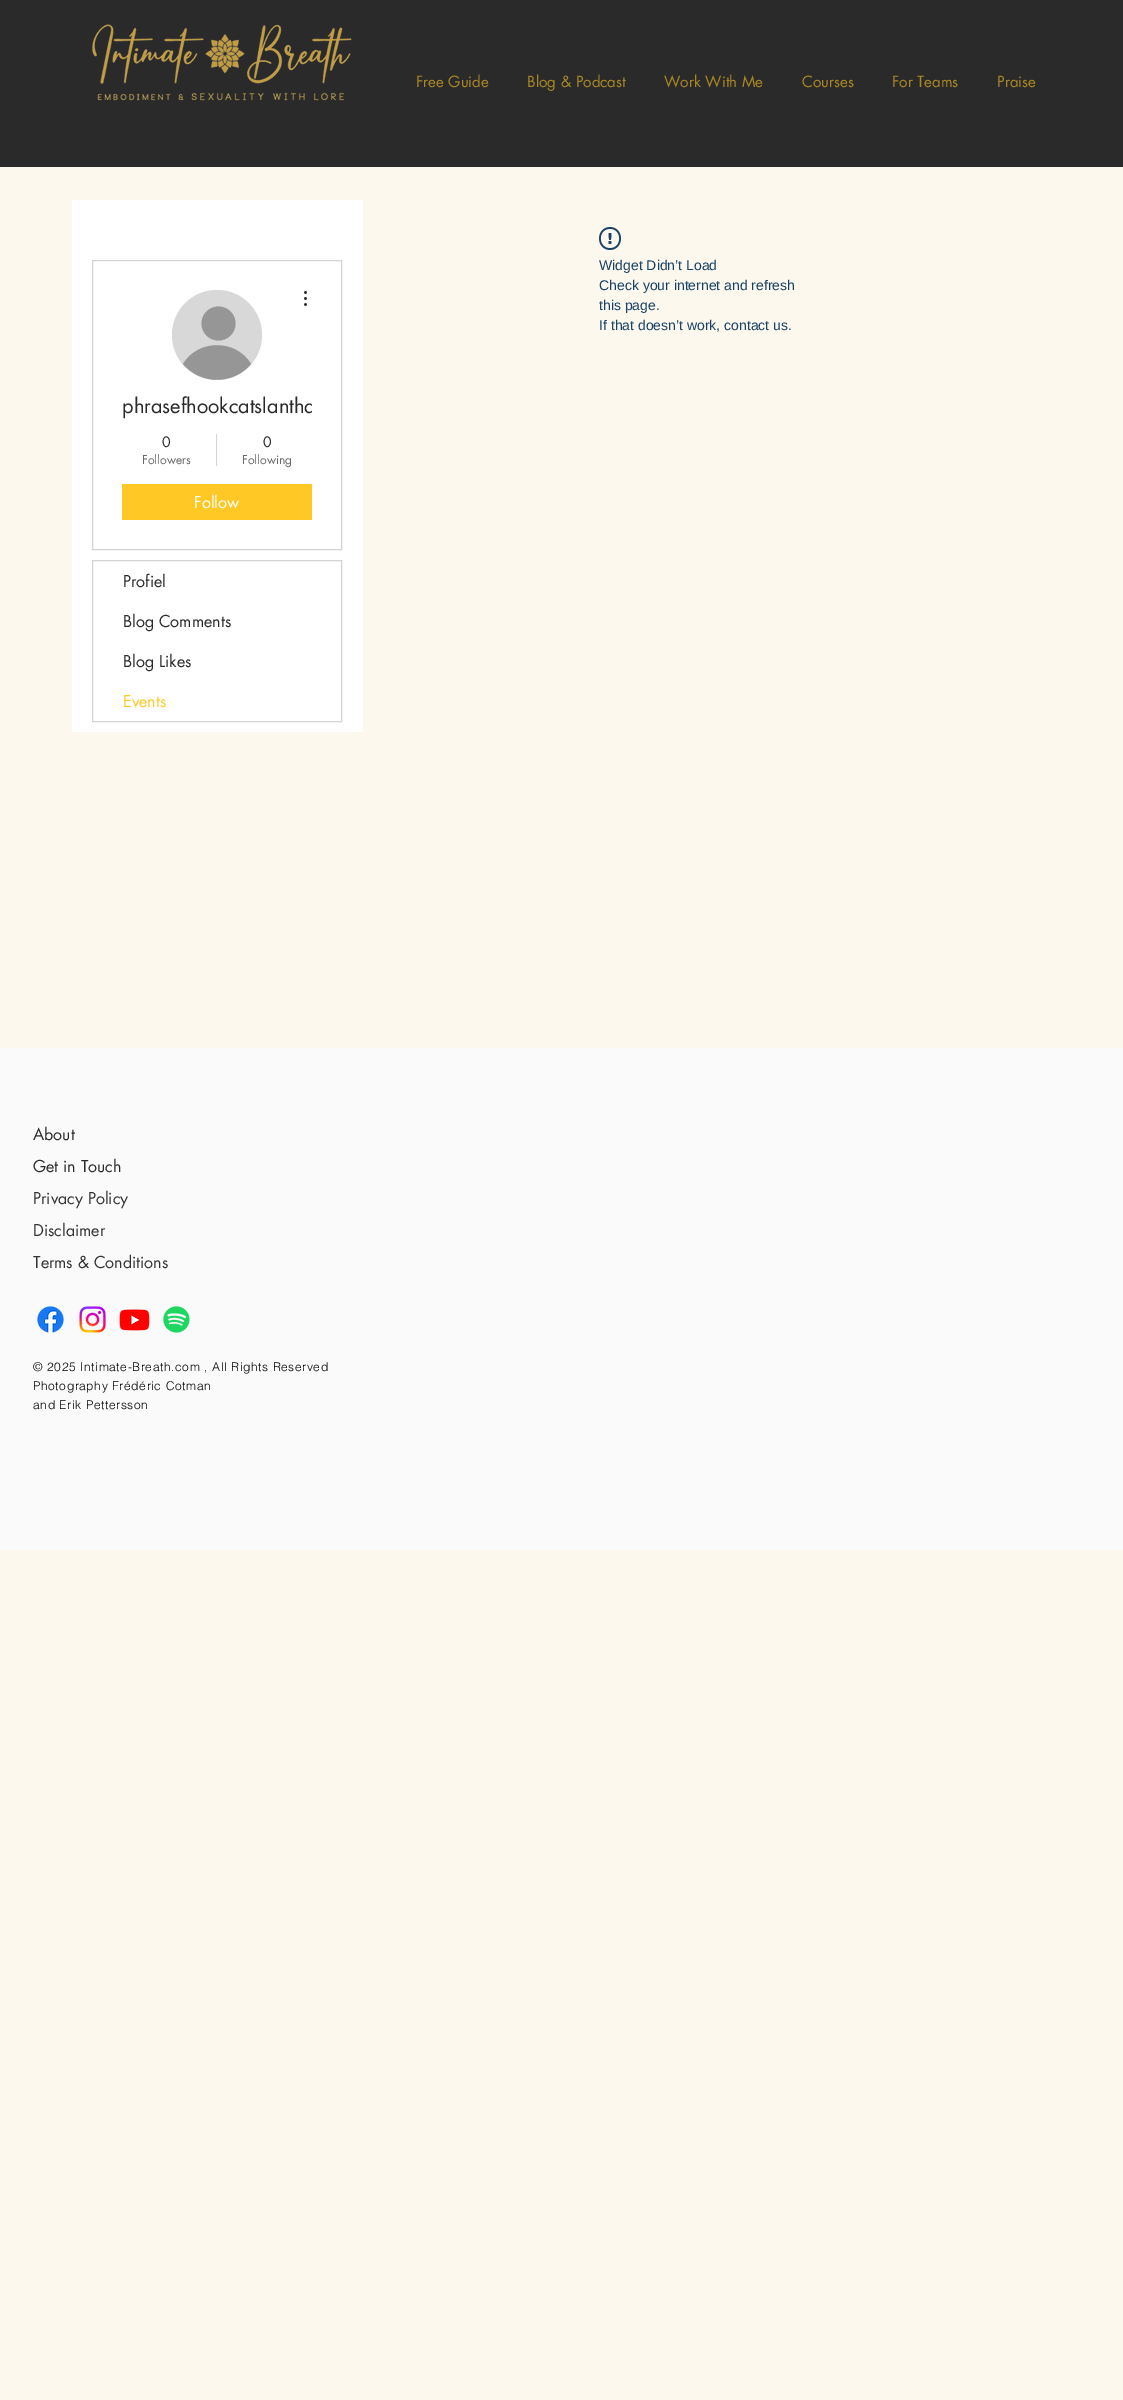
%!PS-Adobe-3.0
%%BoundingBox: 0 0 1123 2400
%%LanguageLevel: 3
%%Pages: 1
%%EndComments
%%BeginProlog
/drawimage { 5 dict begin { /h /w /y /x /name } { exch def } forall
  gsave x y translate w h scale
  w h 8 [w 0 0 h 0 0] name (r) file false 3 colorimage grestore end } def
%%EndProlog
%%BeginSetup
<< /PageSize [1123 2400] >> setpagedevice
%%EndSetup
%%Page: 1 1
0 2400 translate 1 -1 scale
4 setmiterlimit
0.988 0.973 0.929 setrgbcolor
0 0 1123 2400 rectfill
0.165 setgray
0 0 1123 167 rectfill
(images/1.raw) 92 24 260 77 drawimage
(images/2.raw) 599 227 22 23 drawimage
1 setgray
72 200 291 532 rectfill
0.831 setgray
92.5 260.5 249 289 rectstroke
0.847 setgray
newpath 217 335 45 0 360 arc closepath fill
0.588 setgray
newpath 218.5 323.5 17 0 360 arc closepath fill
newpath 251 364 moveto 233 385 201 385 183 364 curveto 198 339 236 339 251 364 curveto closepath fill
(images/3.raw) 304 291 3 15 drawimage
0.831 setgray
216 434 1 32 rectfill
1 0.784 0.141 setrgbcolor
122 484 190 36 rectfill
0.831 setgray
92.5 560.5 249 161 rectstroke
0.988 0.976 0.941 setrgbcolor
0 1047 1123 1 rectfill
0.98 setgray
0 1048 1123 502 rectfill
(images/4.raw) 37 1306 27 27 drawimage
(images/5.raw) 79 1306 27 27 drawimage
(images/6.raw) 119 1309 31 22 drawimage
(images/7.raw) 163 1306 27 27 drawimage
/futura-Regular [15 0 0 -15 0 0] selectfont
0.667 0.537 0.141 setrgbcolor
416 87 moveto (Free Guide) show
527 87 moveto (Blog & Podcast) show
664 87 moveto (Work With Me) show
802 87 moveto (Courses) show
892 87 moveto (For Teams) show
997 87 moveto (Praise) show
/LiberationSans-Regular [14 0 0 -14 0 0] selectfont
0.09 0.255 0.396 setrgbcolor
599 270 moveto (Widget Didn’t Load) show
599 290 moveto (Check your internet and refresh) show
599 310 moveto (this page.) show
599 330 moveto (If that doesn’t work, contact us.) show
gsave
122 392 190 28 rectclip
/futura-Regular [20 0 0 -20 0 0] selectfont
0.165 setgray
122 413 moveto (phrasefhookcatslantha) show
grestore
/futura-Regular [14 0 0 -14 0 0] selectfont
0.165 setgray
162 447 moveto (0) show
/futura-Regular [12 0 0 -12 0 0] selectfont
0.416 setgray
142 464 moveto (Followers) show
/futura-Regular [14 0 0 -14 0 0] selectfont
0.165 setgray
263 447 moveto (0) show
/futura-Regular [12 0 0 -12 0 0] selectfont
0.416 setgray
242 464 moveto (Following) show
/futura-Regular [16 0 0 -16 0 0] selectfont
1 setgray
194 508 moveto (Follow) show
0.165 setgray
123 587 moveto (Profiel) show
123 627 moveto (Blog Comments) show
123 667 moveto (Blog Likes) show
1 0.784 0.141 setrgbcolor
123 707 moveto (Events) show
0.165 setgray
33 1140 moveto (About) show
33 1172 moveto (Get in Touch) show
0.2 setgray
33 1204 moveto (Privacy Policy) show
33 1236 moveto (Disclaimer) show
33 1268 moveto (Terms & Conditions) show
/helvetica-Light [12 0 0 -12 0 0] selectfont
0.004 setgray
33 1371 moveto 0.6 0 (© 2025 Intimate-Breath.com , All Rights Reserved) ashow
33 1390 moveto 0.6 0 (Photography Frédéric Cotman) ashow
33 1409 moveto 0.6 0 (and Erik Pettersson) ashow
showpage
%%EOF
